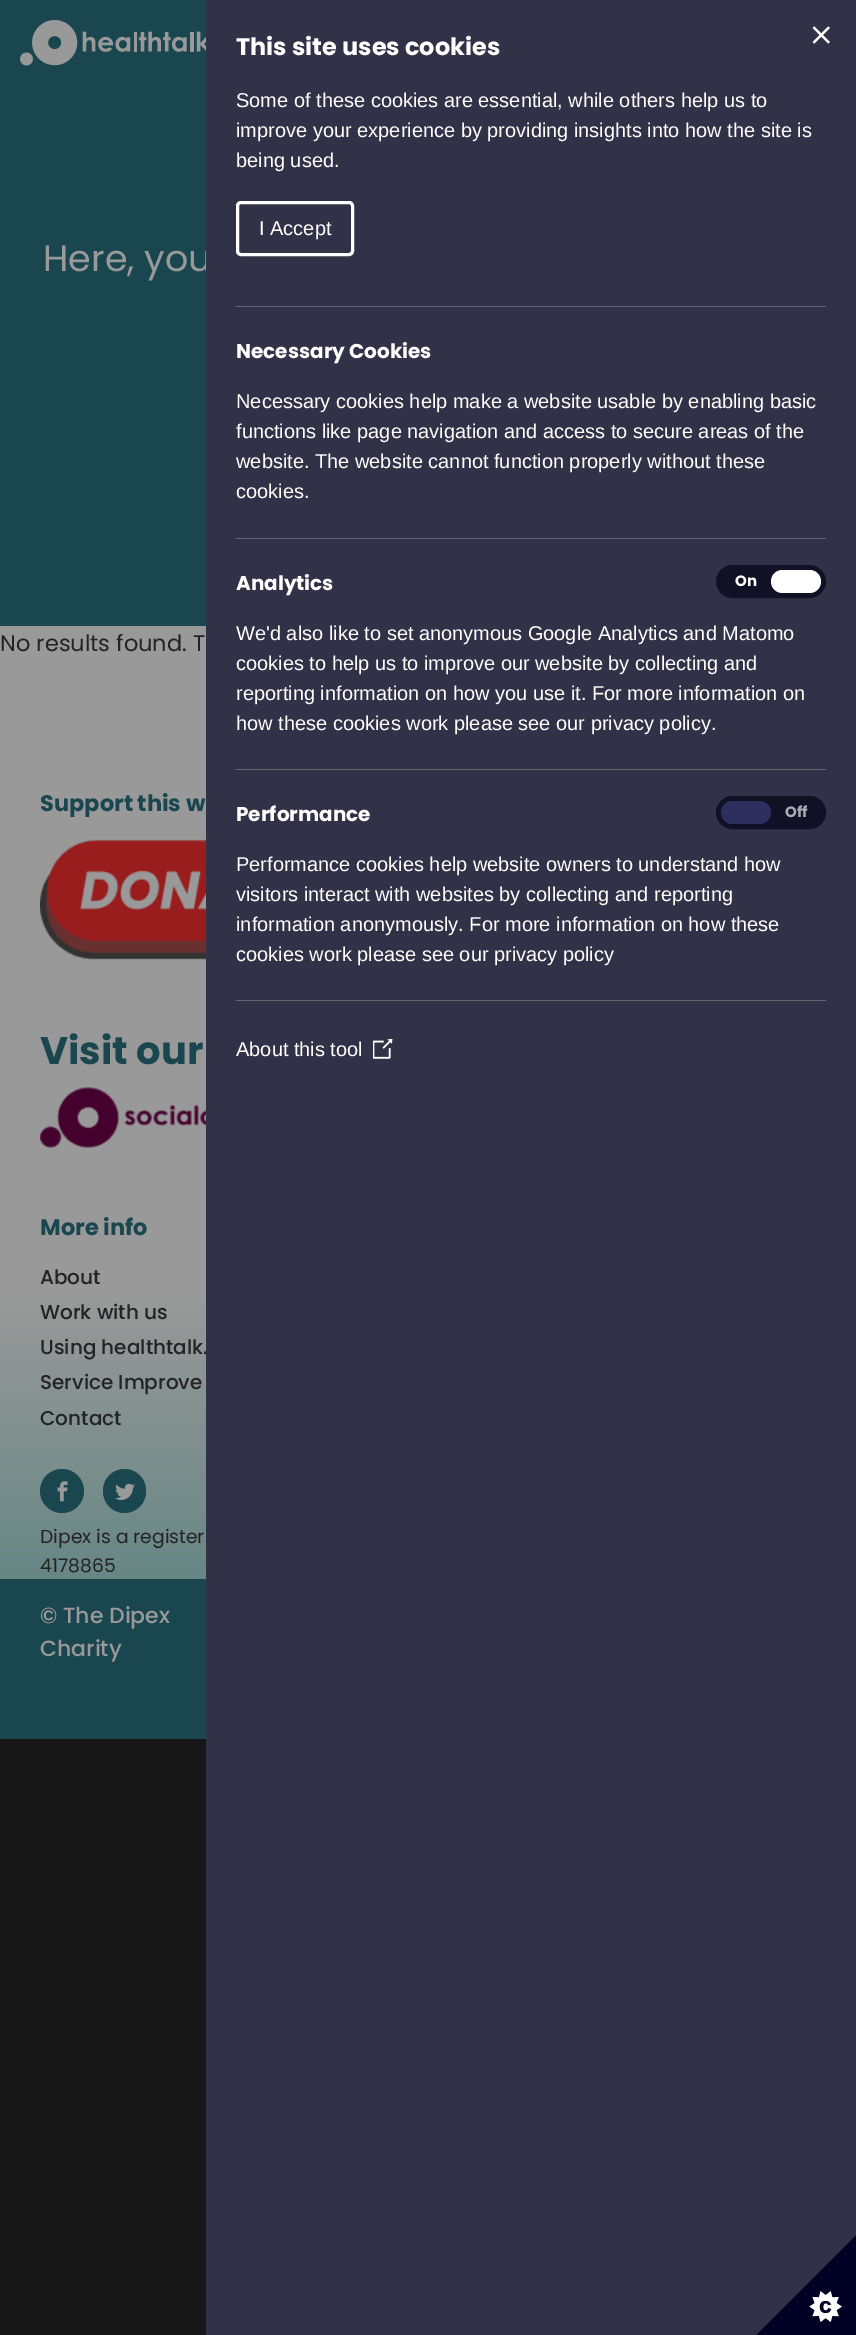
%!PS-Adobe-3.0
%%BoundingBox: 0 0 856 2335
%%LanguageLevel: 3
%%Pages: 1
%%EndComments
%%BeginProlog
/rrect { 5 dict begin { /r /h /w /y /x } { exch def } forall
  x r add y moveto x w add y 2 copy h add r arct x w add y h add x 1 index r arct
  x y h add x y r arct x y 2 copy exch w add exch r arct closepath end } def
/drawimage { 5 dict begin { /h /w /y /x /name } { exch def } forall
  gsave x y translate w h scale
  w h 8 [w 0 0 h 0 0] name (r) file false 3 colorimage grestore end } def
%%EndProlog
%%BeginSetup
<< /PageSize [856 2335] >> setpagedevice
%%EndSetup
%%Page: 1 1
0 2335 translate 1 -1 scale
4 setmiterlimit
0.09 setgray
0 0 856 2335 rectfill
0.102 0.275 0.31 setrgbcolor
0 0 206 626 rectfill
(images/1.raw) 20 20 186 46 drawimage
0.6 setgray
0 626 206 523 rectfill
(images/5.raw) 40 839 166 121 drawimage
(images/6.raw) 40 1087 166 61 drawimage
gsave newpath 0 1149 moveto 206 1149 lineto 206 1579 lineto 0 1579 lineto closepath clip newpath
<< /ShadingType 2 /ColorSpace /DeviceRGB /Coords [428 1649 428 1149] /Extend [true true] /Function << /FunctionType 3 /Domain [0 1] /Functions [<< /FunctionType 2 /Domain [0 1] /C0 [0.357 0.514 0.498] /C1 [0.6 0.6 0.6] /N 1 >> << /FunctionType 2 /Domain [0 1] /C0 [0.6 0.6 0.6] /C1 [0.6 0.6 0.6] /N 1 >>] /Bounds [0.7] /Encode [0 1 0 1] >> >> shfill grestore
0.102 0.275 0.31 setrgbcolor
newpath 62 1491 22 0 360 arc closepath fill
(images/7.raw) 57 1481 11 21 drawimage
103 1469 43 44 21.5 rrect fill
(images/8.raw) 115 1483 20 17 drawimage
0 1579 206 160 rectfill
/Poppins-Regular [36.5 0 0 -36.5 0 0] selectfont
0.6 setgray
43 271 moveto (Here, you) show
/Poppins-Regular [22.5 0 0 -22.5 0 0] selectfont
0.137 0.137 0.145 setrgbcolor
0 651 moveto (No results found. T) show
/Poppins-Bold [22.5 0 0 -22.5 0 0] selectfont
0.102 0.275 0.31 setrgbcolor
40 811 moveto (Support this w) show
/Poppins-Bold [38.5 0 0 -38.5 0 0] selectfont
40 1064 moveto (Visit our) show
/Poppins-Bold [22.5 0 0 -22.5 0 0] selectfont
40 1235 moveto (More info) show
/Poppins-Medium [20 0 0 -20 0 0] selectfont
0.137 0.137 0.145 setrgbcolor
40 1284 moveto (About) show
40 1319 moveto (Work with us) show
40 1354 moveto (Using healthtalk.) show
0.192 0.192 0.278 setrgbcolor
206 0 650 2335 rectfill
(images/4.raw) 756 2235 100 100 drawimage
(images/3.raw) 812 26 18 18 drawimage
0.067 0.067 0.145 setrgbcolor
718.5 798.5 105 28 14 rrect gsave fill grestore
5 setlinewidth
stroke
0.184 0.184 0.373 setrgbcolor
721 801 50 23 11.5 rrect fill
0.067 0.067 0.145 setrgbcolor
718.5 567.5 105 28 14 rrect gsave fill grestore
stroke
1 setgray
771 570 50 23 11.5 rrect fill
/Poppins-Bold [15 0 0 -15 0 0] selectfont
0.675 0.675 0.702 setrgbcolor
785 817 moveto (Off) show
1 setgray
735 586 moveto (On) show
(images/2.raw) 373 1039 20 20 drawimage
0.396 0.396 0.459 setrgbcolor
236 1000 590 1 rectfill
/LiberationSans-Regular [20 0 0 -20 0 0] selectfont
1 setgray
236 961 moveto (cookies work please see our privacy policy) show
236 931 moveto (information anonymously. For more information on how these) show
236 901 moveto (visitors interact with websites by collecting and reporting) show
236 871 moveto (Performance cookies help website owners to understand how) show
/Poppins-Bold [20 0 0 -20 0 0] selectfont
236 821 moveto (Performance) show
0.396 0.396 0.459 setrgbcolor
236 769 590 1 rectfill
/LiberationSans-Regular [20 0 0 -20 0 0] selectfont
1 setgray
236 730 moveto (how these cookies work please see our privacy policy.) show
236 700 moveto (reporting information on how you use it. For more information on) show
236 670 moveto (cookies to help us to improve our website by collecting and) show
236 640 moveto (We'd also like to set anonymous Google Analytics and Matomo) show
/Poppins-Bold [20 0 0 -20 0 0] selectfont
236 590 moveto (Analytics) show
0.396 0.396 0.459 setrgbcolor
236 538 590 1 rectfill
236 306 590 1 rectfill
/LiberationSans-Regular [20 0 0 -20 0 0] selectfont
1 setgray
236 1056 moveto (About this tool) show
236 498 moveto (cookies.) show
236 468 moveto (website. The website cannot function properly without these) show
236 438 moveto (functions like page navigation and access to secure areas of the) show
236 408 moveto (Necessary cookies help make a website usable by enabling basic) show
/Poppins-Bold [20 0 0 -20 0 0] selectfont
236 358 moveto (Necessary Cookies) show
3 setlinewidth
237.5 202.5 115 52 3.5 rrect stroke
/LiberationSans-Regular [20 0 0 -20 0 0] selectfont
259 235 moveto (I Accept) show
236 167 moveto (being used.) show
236 137 moveto (improve your experience by providing insights into how the site is) show
236 107 moveto (Some of these cookies are essential, while others help us to) show
/Poppins-Bold [24 0 0 -24 0 0] selectfont
236 55 moveto (This site uses cookies) show
/Poppins-Medium [20 0 0 -20 0 0] selectfont
0.137 0.137 0.145 setrgbcolor
40 1389 moveto (Service Improve) show
40 1425 moveto (Contact) show
/Poppins-Regular [18.75 0 0 -18.75 0 0] selectfont
40 1543 moveto (Dipex is a register) show
40 1572 moveto (4178865) show
/Poppins-Medium [22 0 0 -22 0 0] selectfont
0.6 setgray
40 1623 moveto (© The Dipex) show
40 1656 moveto (Charity) show
showpage
%%EOF
